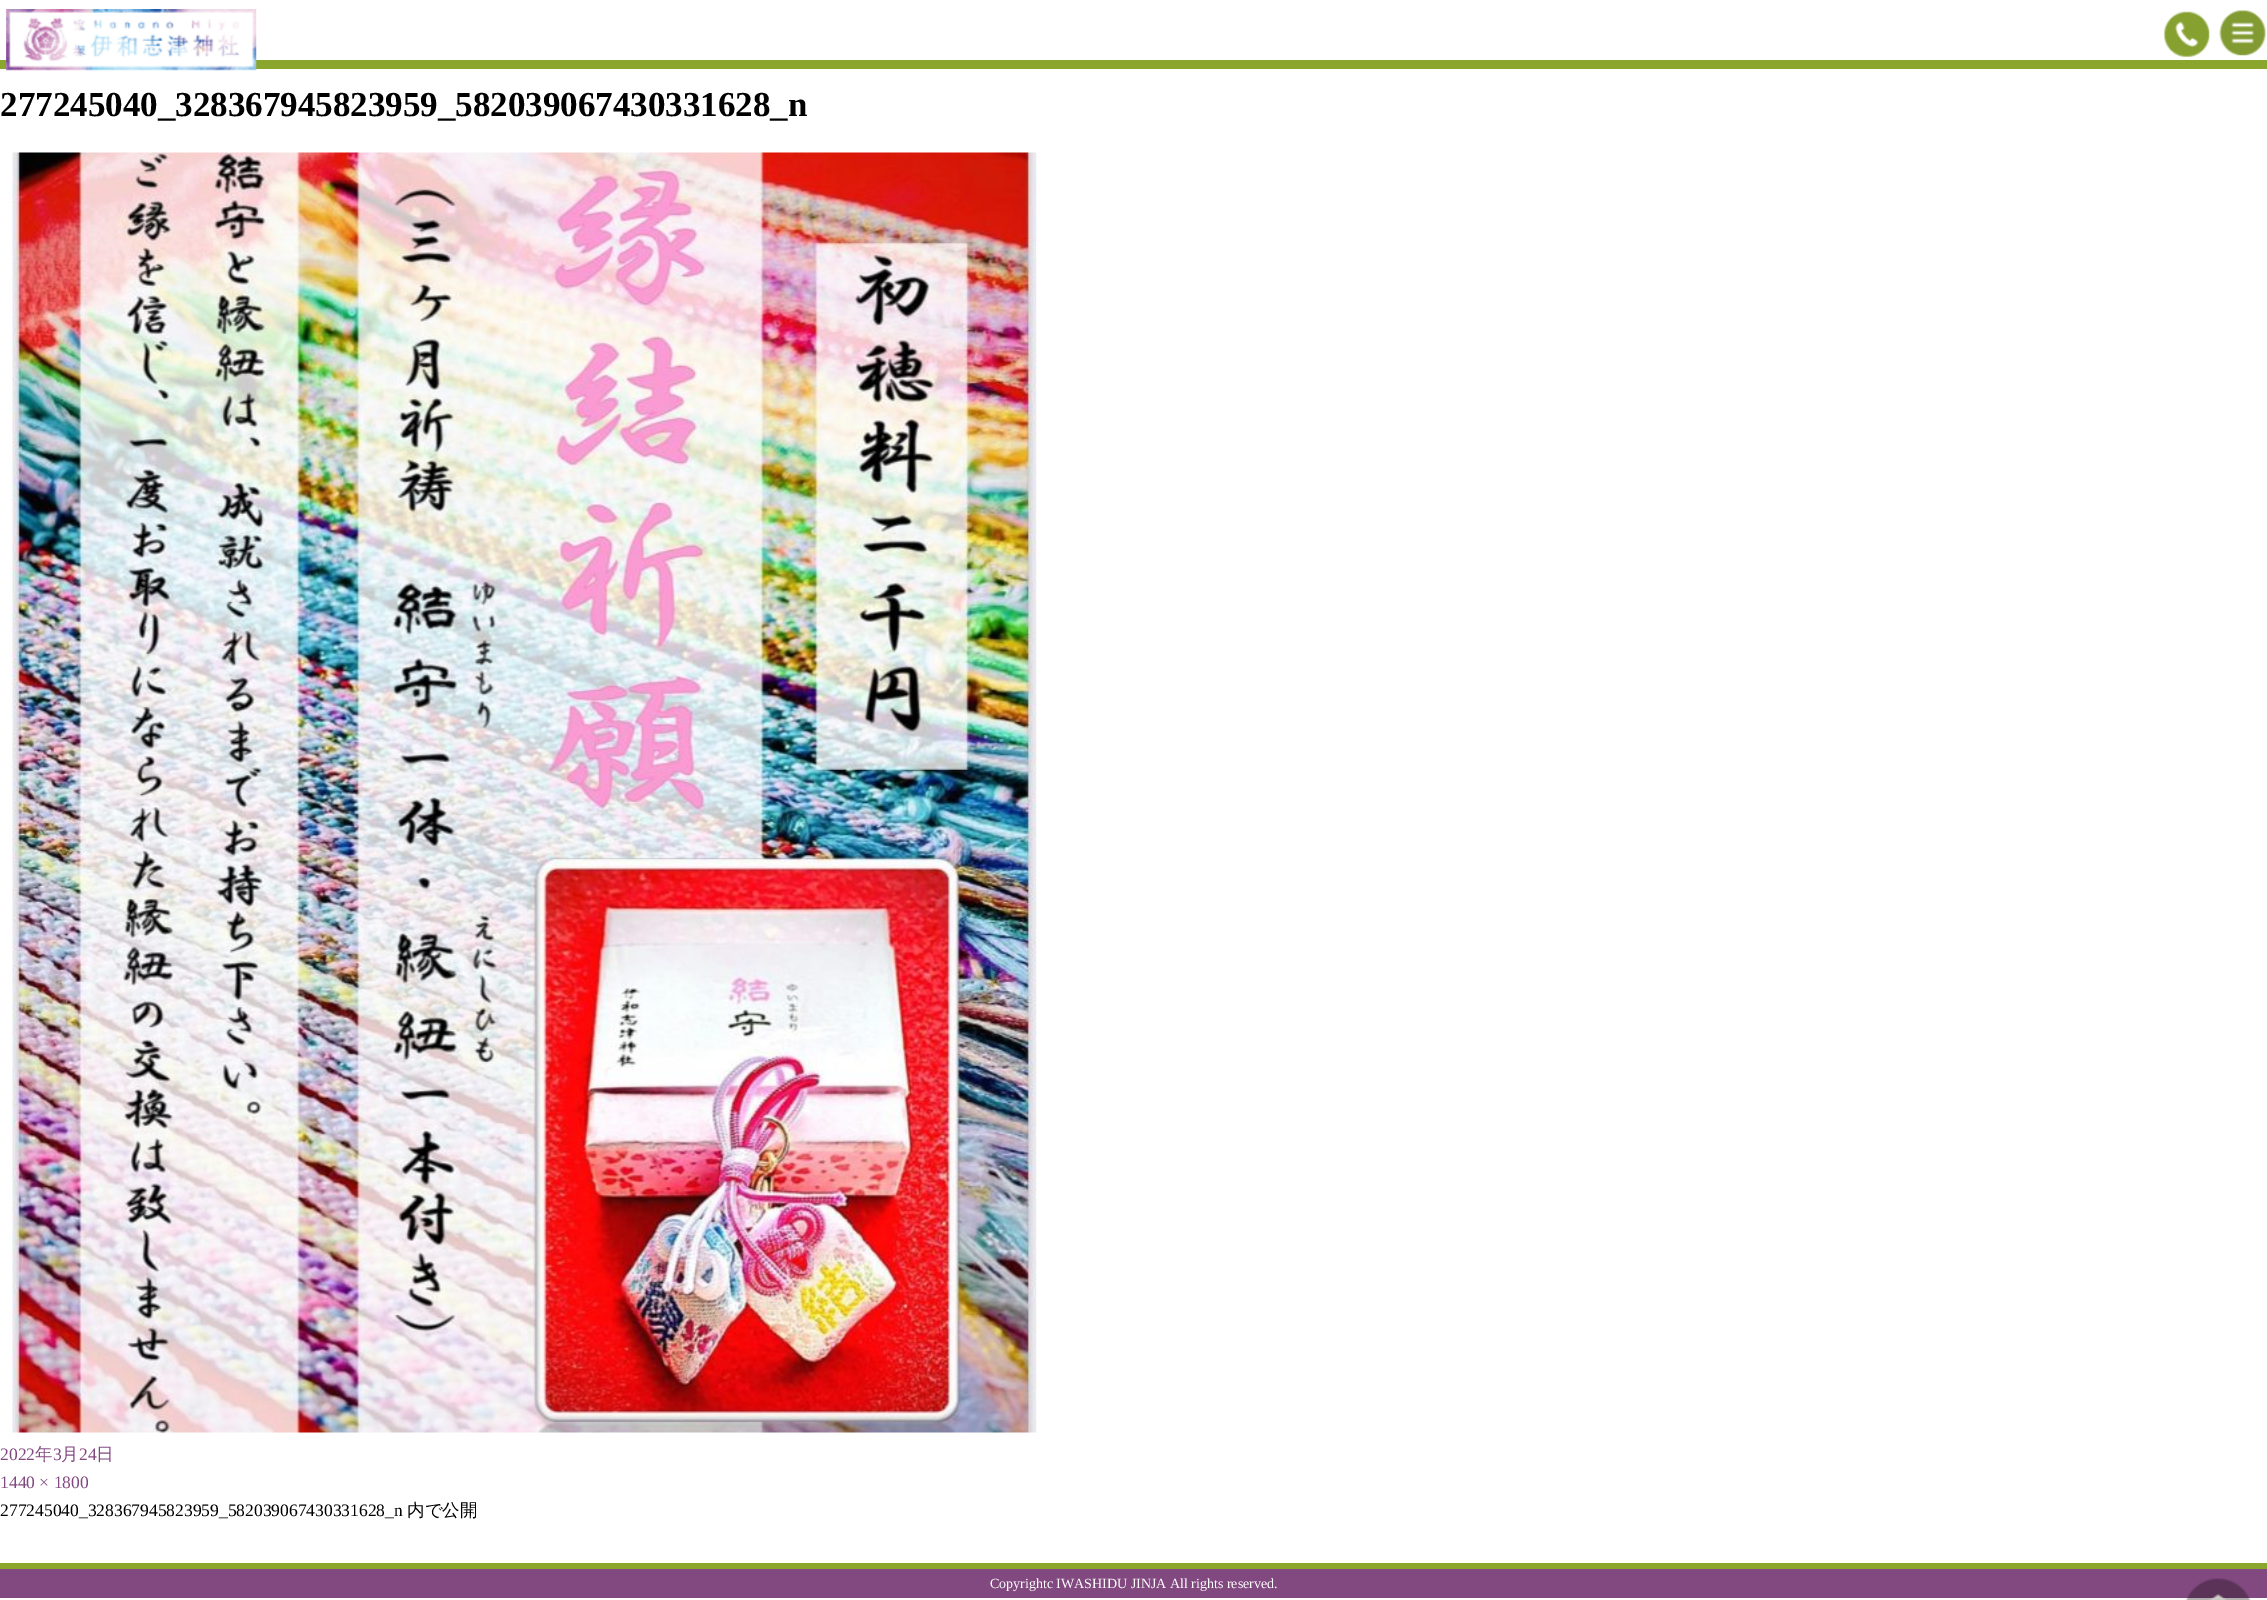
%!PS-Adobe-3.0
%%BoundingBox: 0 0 2267 1600
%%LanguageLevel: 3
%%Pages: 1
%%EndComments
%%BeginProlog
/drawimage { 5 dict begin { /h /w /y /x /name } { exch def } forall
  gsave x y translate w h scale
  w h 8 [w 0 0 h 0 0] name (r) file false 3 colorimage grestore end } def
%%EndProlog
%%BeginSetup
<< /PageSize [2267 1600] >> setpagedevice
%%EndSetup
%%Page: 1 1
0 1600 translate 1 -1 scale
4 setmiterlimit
1 setgray
0 0 2267 1600 rectfill
0.541 0.651 0.176 setrgbcolor
0 60 2267 9 rectfill
(images/1.raw) 6 9 251 62 drawimage
(images/2.raw) 2163 11 47 46 drawimage
(images/3.raw) 2219 10 47 46 drawimage
(images/4.raw) 12 152 1025 1281 drawimage
0 1563 2267 6 rectfill
0.51 0.282 0.502 setrgbcolor
0 1569 2267 29 rectfill
(images/5.raw) 2185 1578 66 22 drawimage
/LiberationSerif-Bold [35 0 0 -35 0 0] selectfont
0 setgray
0 116 moveto (277245040_328367945823959_582039067430331628_n) show
/LiberationSerif-Regular [17.5 0 0 -17.5 0 0] selectfont
0.51 0.282 0.502 setrgbcolor
0 1460 moveto (2022) show
/WenQuanYiZenHei-Medium [17.5 0 0 -17.5 0 0] selectfont
35 1460 moveto (年) show
/LiberationSerif-Regular [17.5 0 0 -17.5 0 0] selectfont
53 1460 moveto (3) show
/WenQuanYiZenHei-Medium [17.5 0 0 -17.5 0 0] selectfont
61 1460 moveto (月) show
/LiberationSerif-Regular [17.5 0 0 -17.5 0 0] selectfont
79 1460 moveto (24) show
/WenQuanYiZenHei-Medium [17.5 0 0 -17.5 0 0] selectfont
96 1460 moveto (日) show
/LiberationSerif-Regular [17.5 0 0 -17.5 0 0] selectfont
0 1488 moveto (1440 × 1800) show
0 setgray
0 1516 moveto (277245040_328367945823959_582039067430331628_n) show
/WenQuanYiZenHei-Medium [17.5 0 0 -17.5 0 0] selectfont
407 1516 moveto (内で公開) show
/LiberationSerif-Regular [14 0 0 -14 0 0] selectfont
1 setgray
990 1588 moveto (Copyrightc IWASHIDU JINJA All rights reserved.) show
showpage
%%EOF
